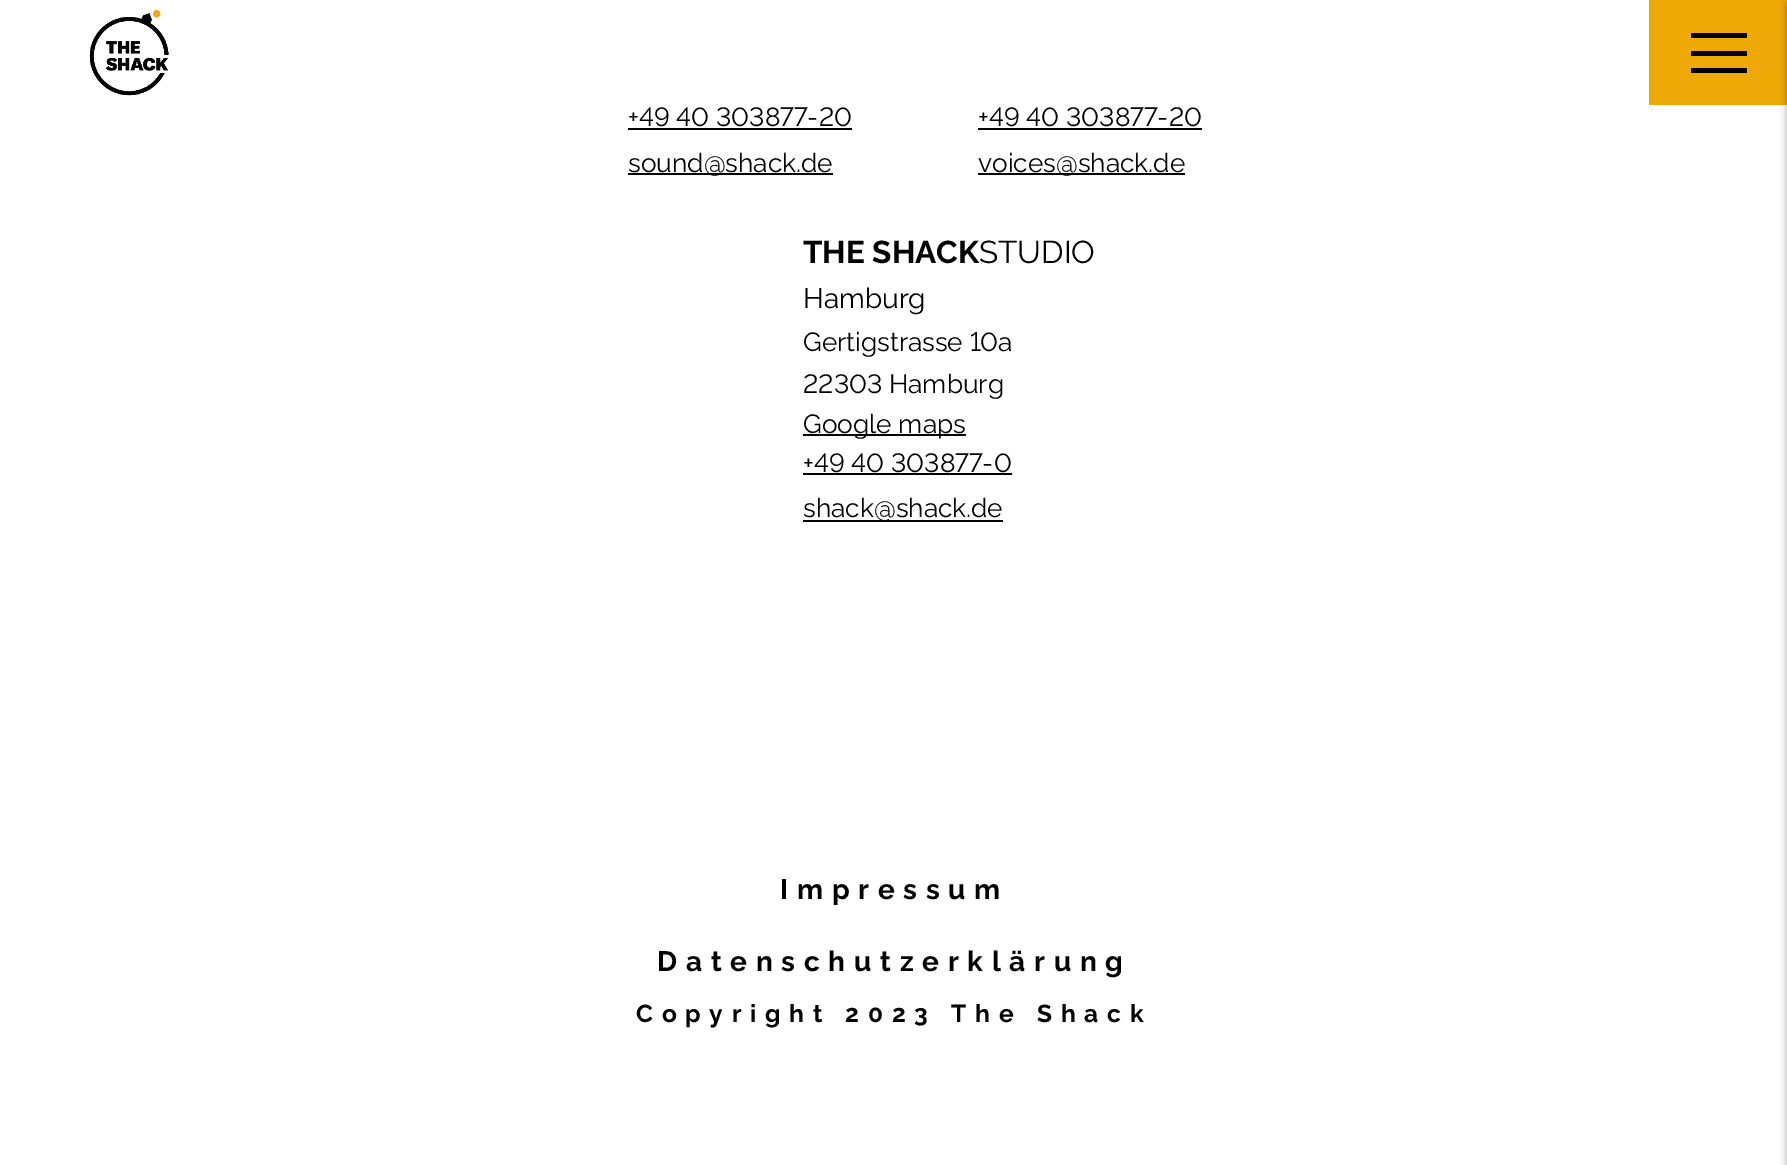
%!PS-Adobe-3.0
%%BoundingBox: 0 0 1787 1165
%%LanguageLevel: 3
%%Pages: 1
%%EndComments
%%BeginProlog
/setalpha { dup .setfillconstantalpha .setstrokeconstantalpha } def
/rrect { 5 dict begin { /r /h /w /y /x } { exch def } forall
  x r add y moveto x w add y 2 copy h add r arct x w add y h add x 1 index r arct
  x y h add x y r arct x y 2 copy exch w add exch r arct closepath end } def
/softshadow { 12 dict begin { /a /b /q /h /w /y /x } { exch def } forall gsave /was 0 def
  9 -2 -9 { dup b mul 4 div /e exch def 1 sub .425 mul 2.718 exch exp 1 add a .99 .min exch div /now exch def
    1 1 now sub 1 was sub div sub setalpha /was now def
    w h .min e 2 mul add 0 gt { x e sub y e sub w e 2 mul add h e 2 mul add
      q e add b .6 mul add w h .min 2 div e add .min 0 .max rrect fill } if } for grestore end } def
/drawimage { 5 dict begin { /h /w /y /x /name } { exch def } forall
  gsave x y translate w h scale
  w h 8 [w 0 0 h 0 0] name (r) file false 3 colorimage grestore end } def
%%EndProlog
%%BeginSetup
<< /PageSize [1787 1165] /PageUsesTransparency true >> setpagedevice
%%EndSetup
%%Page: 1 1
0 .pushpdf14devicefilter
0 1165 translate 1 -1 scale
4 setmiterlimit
1 setgray
0 0 1787 1165 rectfill
0.937 0.663 0.027 setrgbcolor
1649 0 138 105 rectfill
0 setgray
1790 4 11 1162 0 4.5 0.75 softshadow
(images/1.raw) 89 10 80 86 drawimage
(images/2.raw) 89 10 80 86 drawimage
1691 33 56 5 rectfill
1691 51 56 5 rectfill
1691 68 56 5 rectfill
628 128 224 2 rectfill
628 173 205 2 rectfill
978 128 224 2 rectfill
978 173 207 2 rectfill
803 434 163 2 rectfill
803 473 209 2 rectfill
803 520 200 2 rectfill
/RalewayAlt-Regular [26.25 0 0 -26.25 0 0] selectfont
628 126 moveto (+49 40 303877-20) show
/Raleway-Regular [26.25 0 0 -26.25 0 0] selectfont
628 172 moveto (sound@shack.de) show
/RalewayAlt-Regular [26.25 0 0 -26.25 0 0] selectfont
978 126 moveto (+49 40 303877-20) show
/Raleway-Regular [26.25 0 0 -26.25 0 0] selectfont
978 172 moveto (voices@shack.de) show
/Raleway-Bold [31.5 0 0 -31.5 0 0] selectfont
803 263 moveto (THE SHACK) show
/Raleway-Regular [31.5 0 0 -31.5 0 0] selectfont
979 263 moveto (STUDIO) show
/Raleway-Regular [28 0 0 -28 0 0] selectfont
803 308 moveto (Hamburg) show
/RalewayAlt-Regular [26.25 0 0 -26.25 0 0] selectfont
803 351 moveto (Gertigstrasse 10a) show
803 393 moveto (22303 Hamburg) show
/Raleway-Regular [26.25 0 0 -26.25 0 0] selectfont
803 433 moveto (Google maps) show
/RalewayAlt-Regular [26.25 0 0 -26.25 0 0] selectfont
803 472 moveto (+49 40 303877-0) show
/Raleway-Regular [26.25 0 0 -26.25 0 0] selectfont
803 517 moveto (shack@shack.de) show
/Raleway-Bold [28 0 0 -28 0 0] selectfont
780 899 moveto 8.75 0 (Impressum) ashow
657 971 moveto 8.75 0 (Datenschutzerklärung) ashow
/Raleway-Bold [24.5 0 0 -24.5 0 0] selectfont
636 1022 moveto 8.75 0 (Copyright 2023 The Shack) ashow
.poppdf14devicefilter showpage
%%EOF
